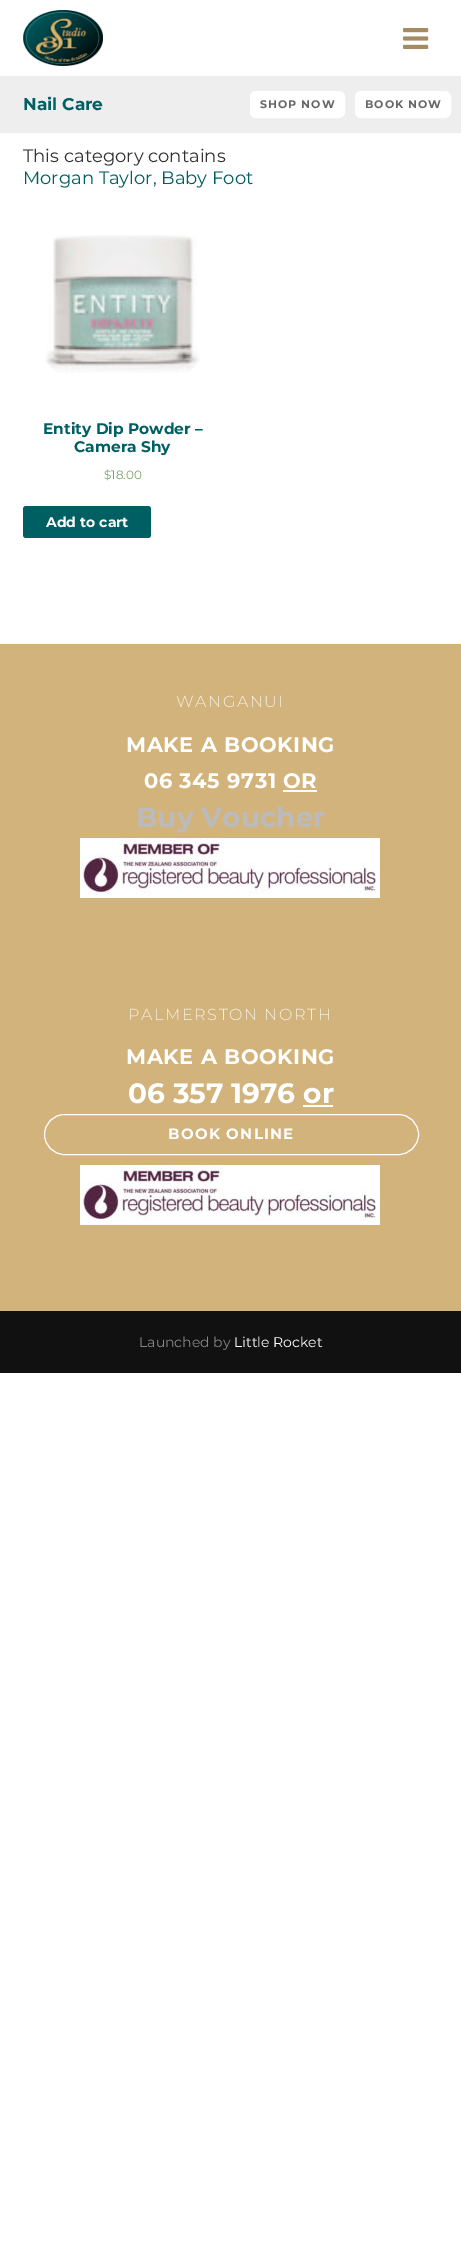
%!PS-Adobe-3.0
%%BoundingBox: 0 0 461 2260
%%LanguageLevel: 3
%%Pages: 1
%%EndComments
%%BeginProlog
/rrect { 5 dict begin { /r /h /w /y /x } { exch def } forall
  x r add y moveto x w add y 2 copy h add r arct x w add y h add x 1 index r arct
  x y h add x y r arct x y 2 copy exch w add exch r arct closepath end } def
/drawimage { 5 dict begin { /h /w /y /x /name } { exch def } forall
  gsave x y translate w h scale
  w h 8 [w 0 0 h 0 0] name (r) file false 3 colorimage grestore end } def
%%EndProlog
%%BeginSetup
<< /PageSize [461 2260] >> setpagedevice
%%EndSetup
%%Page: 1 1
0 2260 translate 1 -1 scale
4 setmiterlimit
1 setgray
0 0 461 2260 rectfill
(images/1.raw) 23 10 80 56 drawimage
(images/2.raw) 403 28 26 21 drawimage
0.933 setgray
0 76 461 57 rectfill
1 setgray
251 92 93 25 5 rrect gsave fill grestore
2 setlinewidth
stroke
356 92 94 25 5 rrect gsave fill grestore
stroke
(images/3.raw) 45 235 155 138 drawimage
0 0.373 0.388 setrgbcolor
23 506 128 32 3 rrect fill
0.824 0.702 0.482 setrgbcolor
0 644 461 667 rectfill
1 setgray
283 790 34 2 rectfill
(images/4.raw) 80 838 300 60 drawimage
303 1105 30 2 rectfill
1 setlinewidth
44.5 1114.5 374 40 20 rrect stroke
(images/4.raw) 80 1165 300 60 drawimage
0.067 setgray
0 1311 461 62 rectfill
/Montserrat-Bold [17 0 0 -17 0 0] selectfont
0 0.373 0.388 setrgbcolor
23 110 moveto (Nail Care) show
/Montserrat-Bold [11 0 0 -11 0 0] selectfont
0.4 setgray
260 108 moveto 1 0 (SHOP NOW) ashow
365 108 moveto 1 0 (BOOK NOW) ashow
/Montserrat-Regular [18 0 0 -18 0 0] selectfont
0.2 setgray
23 162 moveto (This category contains) show
0 0.373 0.388 setrgbcolor
23 184 moveto (Morgan Taylor, Baby Foot) show
/Montserrat-Bold [15.4 0 0 -15.4 0 0] selectfont
43 434 moveto (Entity Dip Powder –) show
74 452 moveto (Camera Shy) show
/Montserrat-Regular [12 0 0 -12 0 0] selectfont
0.467 0.643 0.392 setrgbcolor
104 479 moveto ($18.00) show
/Montserrat-Bold [14 0 0 -14 0 0] selectfont
1 setgray
46 527 moveto (Add to cart) show
/Montserrat-Light [16 0 0 -16 0 0] selectfont
0.965 0.941 0.898 setrgbcolor
176 707 moveto 1.6 0 (WANGANUI) ashow
/Montserrat-Bold [21 0 0 -21 0 0] selectfont
1 setgray
126 752 moveto 0.6 0 (MAKE A BOOKING) ashow
144 788 moveto 0.6 0 (06 345 9731 OR) ashow
/Montserrat-Bold [28 0 0 -28 0 0] selectfont
0.733 setgray
136 827 moveto (Buy Voucher) show
/Montserrat-Light [16 0 0 -16 0 0] selectfont
0.965 0.941 0.898 setrgbcolor
128 1020 moveto 1.6 0 (PALMERSTON NORTH) ashow
/Montserrat-Bold [21 0 0 -21 0 0] selectfont
1 setgray
126 1064 moveto 0.6 0 (MAKE A BOOKING) ashow
/Montserrat-Bold [28 0 0 -28 0 0] selectfont
128 1103 moveto (06 357 1976 or) show
/Montserrat-Bold [15 0 0 -15 0 0] selectfont
168 1139 moveto 1.25 0 (BOOK ONLINE) ashow
/Montserrat-Regular [14 0 0 -14 0 0] selectfont
0.533 setgray
139 1347 moveto (Launched by) show
1 setgray
234 1347 moveto (Little Rocket) show
showpage
%%EOF
